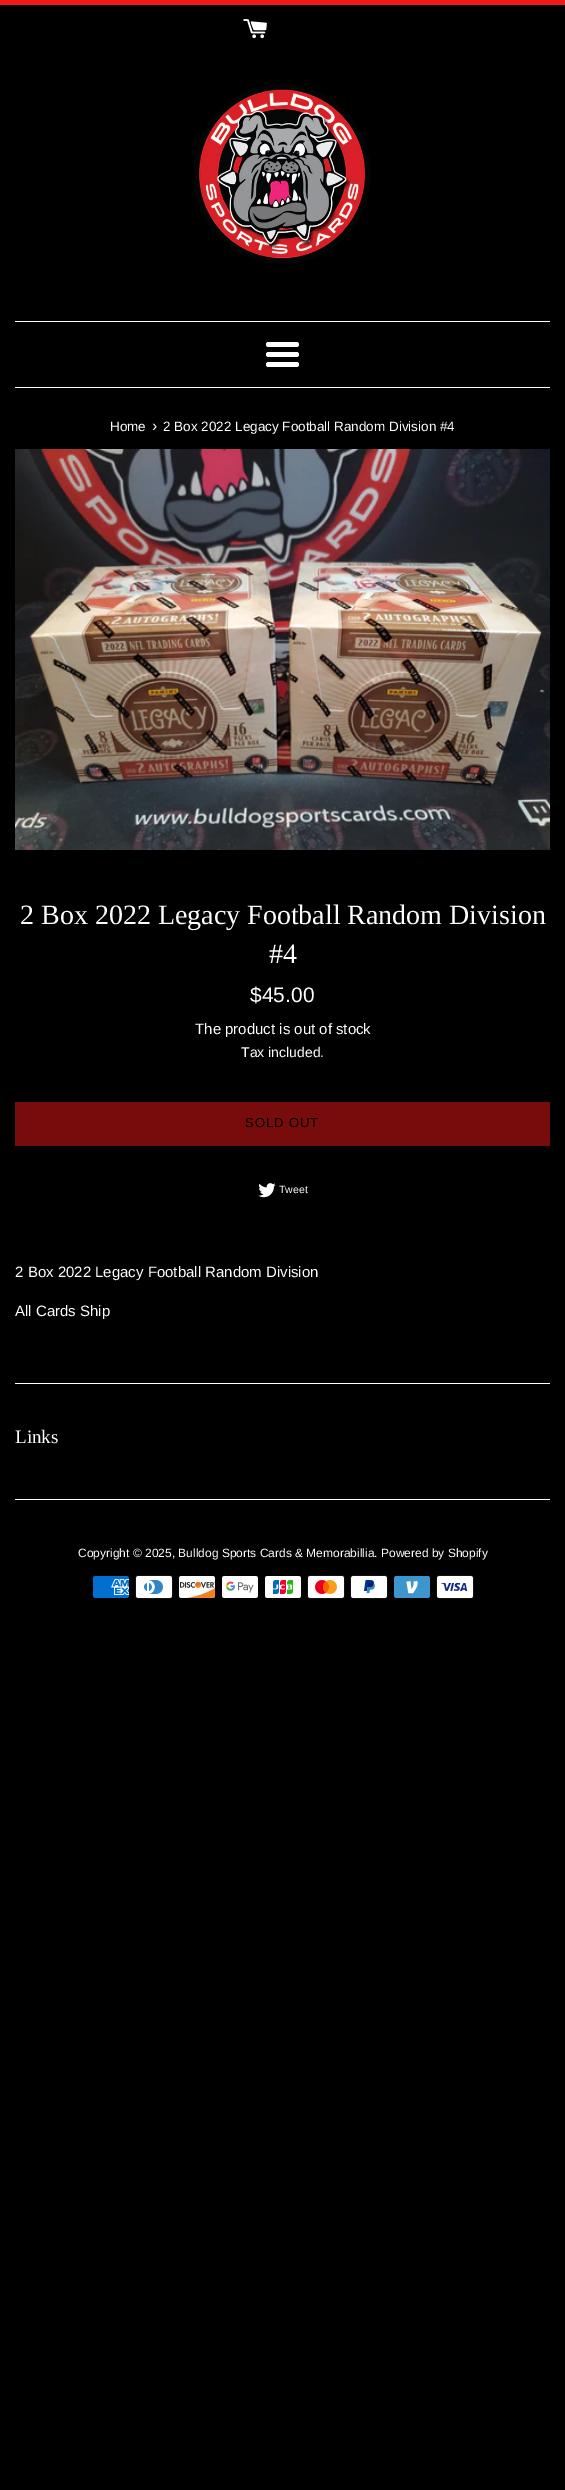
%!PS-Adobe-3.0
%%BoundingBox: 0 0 565 2490
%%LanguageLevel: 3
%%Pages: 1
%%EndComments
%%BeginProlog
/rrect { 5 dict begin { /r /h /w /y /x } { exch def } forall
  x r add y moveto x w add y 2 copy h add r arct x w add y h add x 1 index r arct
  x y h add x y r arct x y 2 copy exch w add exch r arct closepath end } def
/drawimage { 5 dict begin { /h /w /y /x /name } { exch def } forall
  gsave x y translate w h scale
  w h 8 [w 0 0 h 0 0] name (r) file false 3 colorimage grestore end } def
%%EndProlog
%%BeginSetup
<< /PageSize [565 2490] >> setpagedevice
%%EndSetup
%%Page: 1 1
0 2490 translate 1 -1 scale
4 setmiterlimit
0 setgray
0 0 565 2490 rectfill
0.941 0.094 0.094 setrgbcolor
0 0 565 5 rectfill
(images/1.raw) 243 19 24 20 drawimage
(images/2.raw) 194 84 177 180 drawimage
1 setgray
15 321 535 1 rectfill
266 342 33 5 2.5 rrect fill
266 352 33 5 2.5 rrect fill
266 362 33 5 2.5 rrect fill
15 387 535 1 rectfill
(images/3.raw) 15 449 535 401 drawimage
0.471 0.047 0.047 setrgbcolor
15 1102 535 44 rectfill
(images/4.raw) 258 1183 18 15 drawimage
1 setgray
15 1383 535 1 rectfill
15 1499 535 1 rectfill
(images/5.raw) 93 1576 36 22 drawimage
(images/6.raw) 135 1575 38 24 drawimage
(images/7.raw) 179 1576 37 22 drawimage
(images/8.raw) 222 1576 36 22 drawimage
(images/9.raw) 265 1576 36 22 drawimage
(images/10.raw) 307 1575 38 24 drawimage
(images/11.raw) 350 1575 38 24 drawimage
(images/12.raw) 394 1576 36 22 drawimage
(images/13.raw) 436 1575 38 24 drawimage
/LiberationSans-Regular [13.5 0 0 -13.5 0 0] selectfont
110 431 moveto (Home) show
/LiberationSans-Regular [16 0 0 -16 0 0] selectfont
152 431 moveto (›) show
/LiberationSans-Regular [13.5 0 0 -13.5 0 0] selectfont
163 431 moveto (2 Box 2022 Legacy Football Random Division #4) show
/LiberationSerif-Regular [28 0 0 -28 0 0] selectfont
20 924 moveto (2 Box 2022 Legacy Football Random Division) show
269 963 moveto (#4) show
/LiberationSans-Regular [21 0 0 -21 0 0] selectfont
250 1002 moveto ($45.00) show
/LiberationSans-Regular [15 0 0 -15 0 0] selectfont
195 1034 moveto (The product is out of stock) show
/LiberationSans-Regular [14 0 0 -14 0 0] selectfont
241 1057 moveto (Tax included.) show
/LiberationSans-Regular [13 0 0 -13 0 0] selectfont
0 setgray
245 1127 moveto 1 0 (SOLD OUT) ashow
/LiberationSans-Regular [10.5 0 0 -10.5 0 0] selectfont
1 setgray
279 1193 moveto (Tweet) show
/LiberationSans-Regular [15 0 0 -15 0 0] selectfont
15 1277 moveto (2 Box 2022 Legacy Football Random Division) show
15 1316 moveto (All Cards Ship) show
/LiberationSerif-Regular [19 0 0 -19 0 0] selectfont
15 1443 moveto (Links) show
/LiberationSans-Regular [12 0 0 -12 0 0] selectfont
78 1557 moveto (Copyright © 2025, Bulldog Sports Cards & Memorabillia. Powered by Shopify) show
showpage
%%EOF
